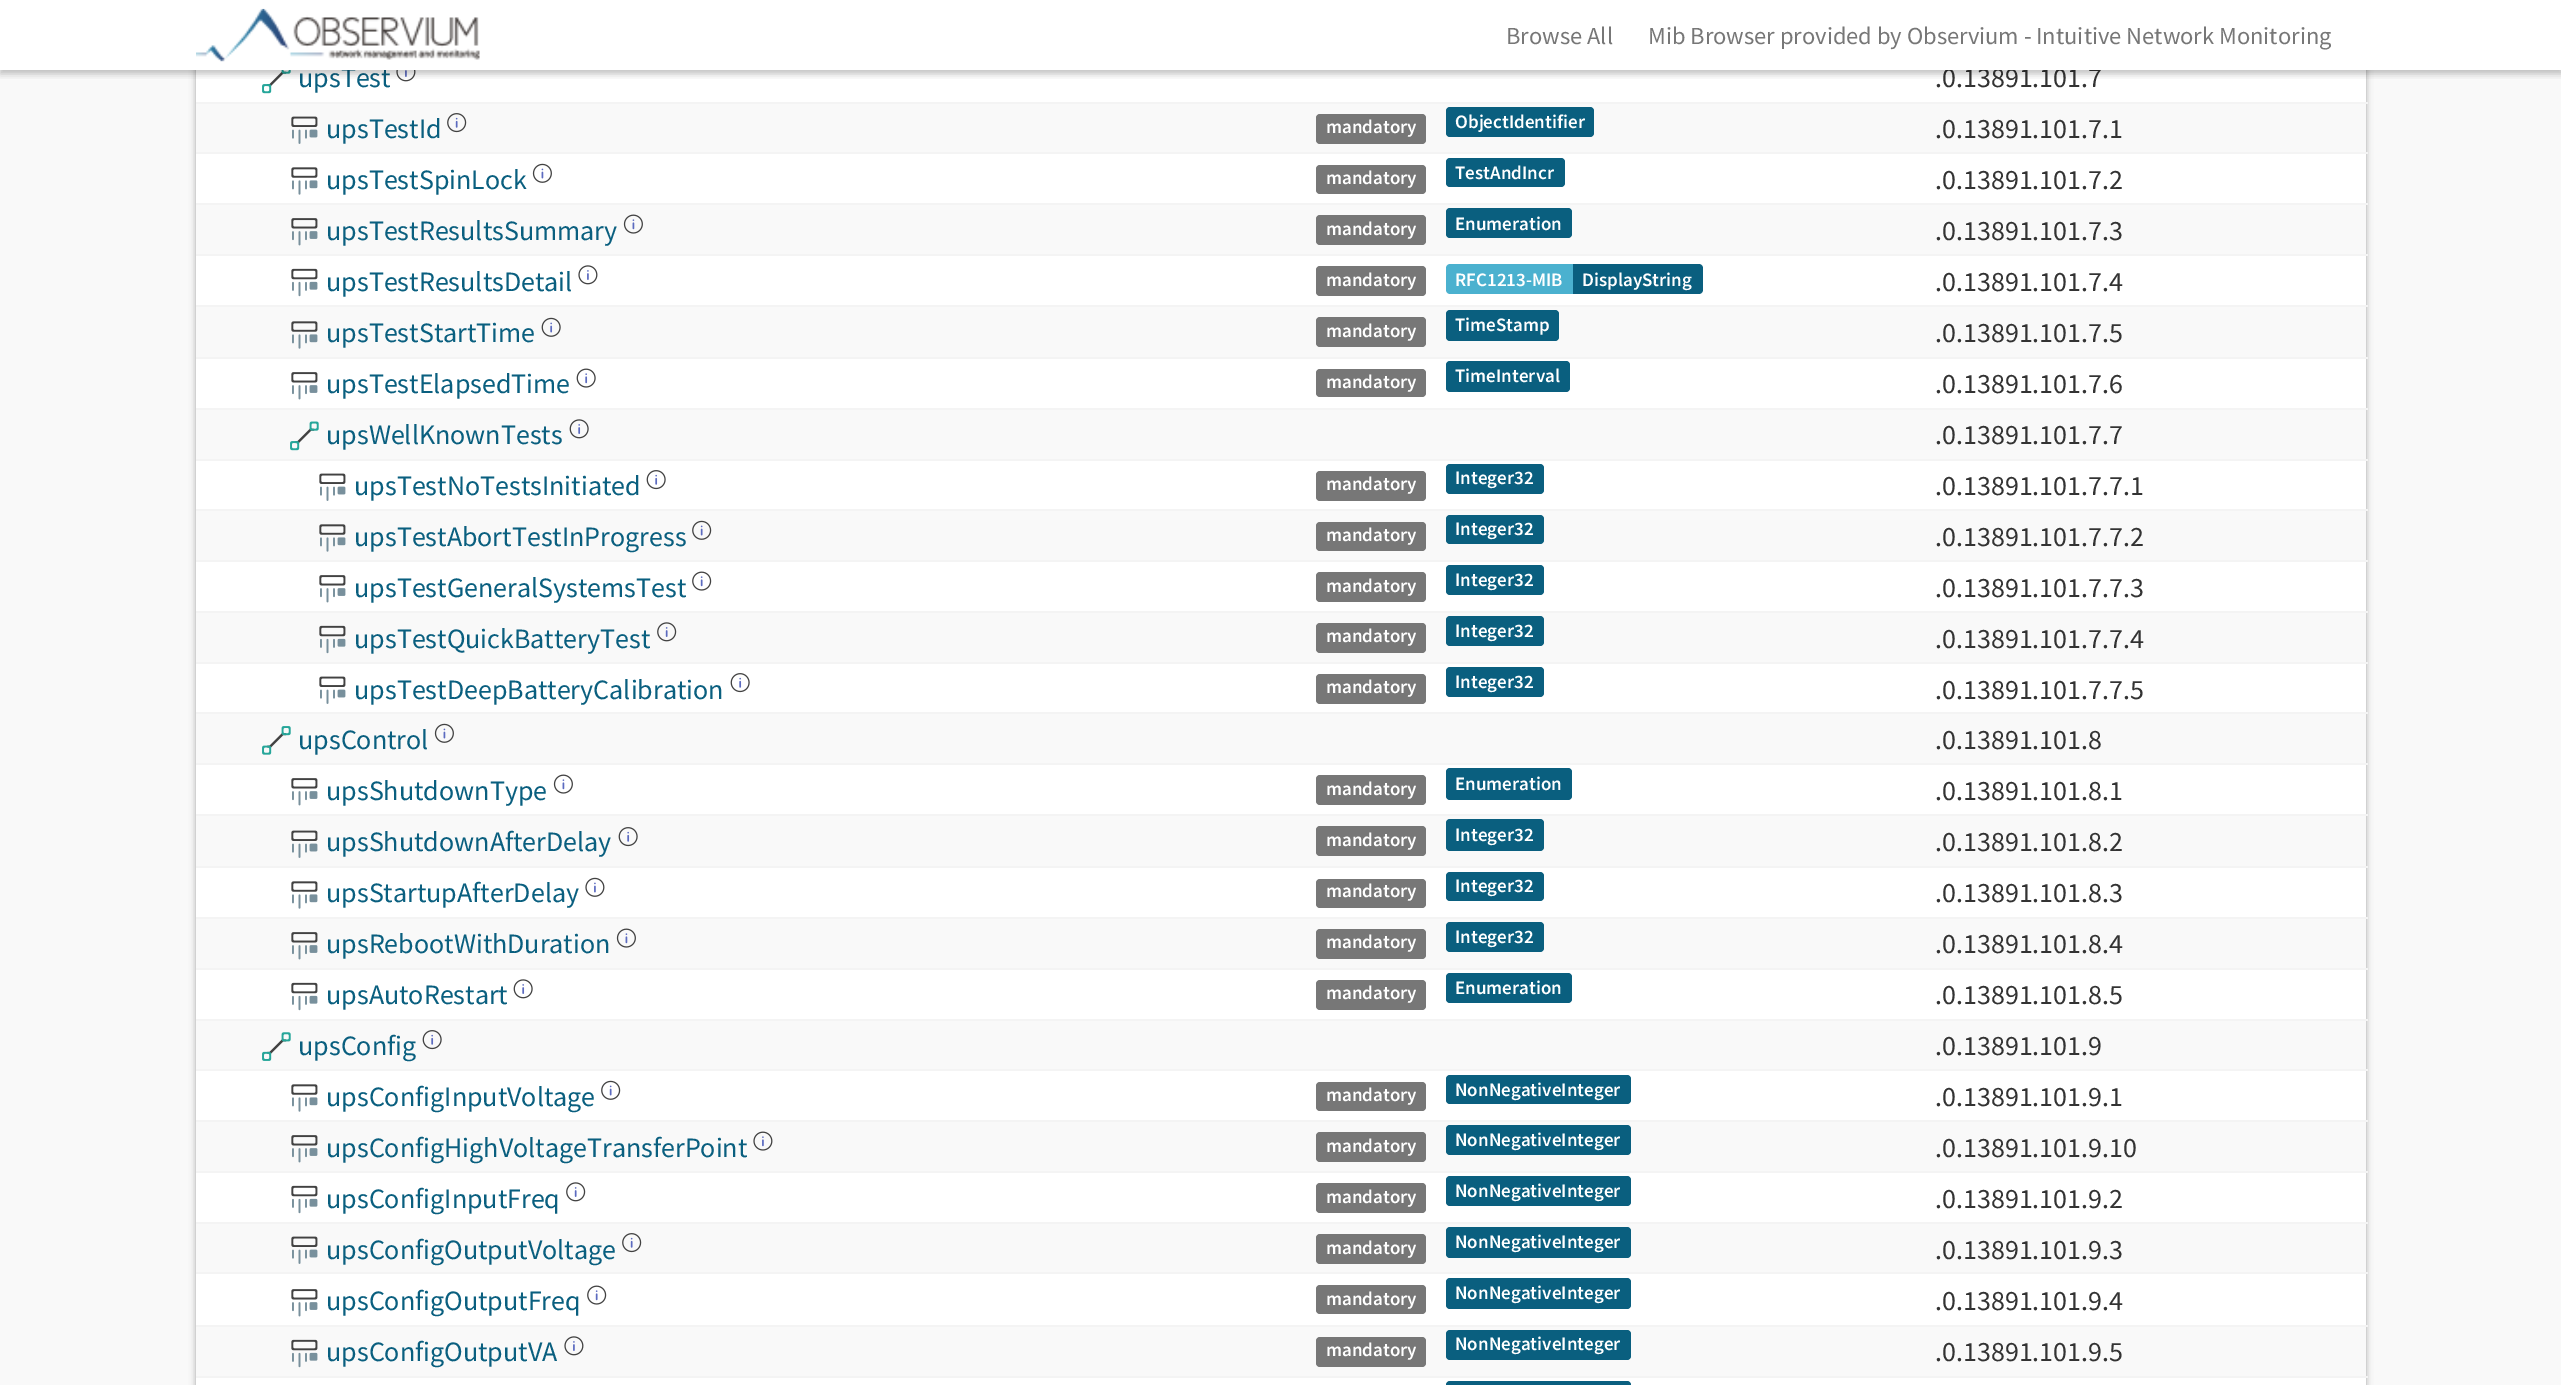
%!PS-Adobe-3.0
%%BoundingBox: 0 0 2561 1385
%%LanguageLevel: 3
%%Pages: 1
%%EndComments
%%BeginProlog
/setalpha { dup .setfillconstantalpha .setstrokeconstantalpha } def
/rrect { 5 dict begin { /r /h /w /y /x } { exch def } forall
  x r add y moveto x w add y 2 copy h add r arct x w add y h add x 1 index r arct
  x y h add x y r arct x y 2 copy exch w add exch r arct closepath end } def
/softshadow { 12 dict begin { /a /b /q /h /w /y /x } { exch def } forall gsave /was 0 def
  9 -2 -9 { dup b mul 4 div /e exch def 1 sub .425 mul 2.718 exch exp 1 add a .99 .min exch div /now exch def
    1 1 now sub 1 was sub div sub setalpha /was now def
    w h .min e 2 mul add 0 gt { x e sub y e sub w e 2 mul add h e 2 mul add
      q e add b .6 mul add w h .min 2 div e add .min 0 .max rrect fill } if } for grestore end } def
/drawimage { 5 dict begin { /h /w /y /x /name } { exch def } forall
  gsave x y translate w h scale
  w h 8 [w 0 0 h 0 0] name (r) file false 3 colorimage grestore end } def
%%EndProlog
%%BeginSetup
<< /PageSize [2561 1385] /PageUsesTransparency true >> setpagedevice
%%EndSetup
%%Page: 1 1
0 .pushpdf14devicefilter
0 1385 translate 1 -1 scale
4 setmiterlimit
0.976 setgray
0 0 2561 1385 rectfill
0 setgray
196 -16 2170 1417 5 3.5 0.24 softshadow
196 -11 2170 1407 5 2 0.12 softshadow
1 setgray
196 70 2170 1315 rectfill
(images/2.raw) 262 70 29 24 drawimage
(images/3.raw) 396 70 20 12 drawimage
0.976 setgray
196 104 2170 48 rectfill
(images/4.raw) 291 116 27 28 drawimage
(images/5.raw) 447 113 20 20 drawimage
0.467 setgray
1316 114 110 30 4 rrect fill
0.039 0.373 0.498 setrgbcolor
1446 107 148 30 4 rrect fill
0.957 setgray
196 102 2172 2 rectfill
(images/6.raw) 291 167 27 28 drawimage
(images/7.raw) 532 163 20 20 drawimage
0.467 setgray
1316 165 110 29 4 rrect fill
0.039 0.373 0.498 setrgbcolor
1446 158 119 29 4 rrect fill
0.957 setgray
196 152 2172 2 rectfill
0.976 setgray
196 205 2170 49 rectfill
(images/8.raw) 291 218 27 28 drawimage
(images/9.raw) 623 214 20 20 drawimage
0.467 setgray
1316 215 110 30 4 rrect fill
0.039 0.373 0.498 setrgbcolor
1446 208 126 30 4 rrect fill
0.957 setgray
196 203 2172 2 rectfill
(images/10.raw) 291 268 27 29 drawimage
(images/11.raw) 578 265 20 20 drawimage
0.467 setgray
1316 266 110 30 4 rrect fill
0.294 0.694 0.812 setrgbcolor
newpath 1450 264 moveto 1573 264 lineto 1573 294 lineto 1450 294 lineto 1448 294 1446 292 1446 290 curveto 1446 268 lineto 1446 266 1448 264 1450 264 curveto closepath fill
0.039 0.373 0.498 setrgbcolor
newpath 1573 264 moveto 1699 264 lineto 1701 264 1703 266 1703 268 curveto 1703 290 lineto 1703 292 1701 294 1699 294 curveto 1573 294 lineto closepath fill
0.957 setgray
196 254 2172 2 rectfill
0.976 setgray
196 307 2170 50 rectfill
(images/12.raw) 291 321 27 28 drawimage
(images/13.raw) 541 317 20 20 drawimage
0.467 setgray
1316 317 110 30 4 rrect fill
0.039 0.373 0.498 setrgbcolor
1446 310 113 31 4 rrect fill
0.957 setgray
196 305 2172 2 rectfill
(images/14.raw) 291 372 27 28 drawimage
(images/15.raw) 576 368 20 20 drawimage
0.467 setgray
1316 369 110 28 4 rrect fill
0.039 0.373 0.498 setrgbcolor
1446 361 124 31 4 rrect fill
0.957 setgray
196 357 2172 2 rectfill
0.976 setgray
196 410 2170 49 rectfill
(images/16.raw) 290 421 29 30 drawimage
(images/17.raw) 569 419 20 20 drawimage
0.957 setgray
196 408 2172 2 rectfill
(images/18.raw) 319 473 27 28 drawimage
(images/19.raw) 646 470 20 20 drawimage
0.467 setgray
1316 471 110 30 4 rrect fill
0.039 0.373 0.498 setrgbcolor
1446 464 98 30 4 rrect fill
0.957 setgray
196 459 2172 2 rectfill
0.976 setgray
196 511 2170 49 rectfill
(images/12.raw) 319 524 27 28 drawimage
(images/20.raw) 692 520 20 20 drawimage
0.467 setgray
1316 522 110 29 4 rrect fill
0.039 0.373 0.498 setrgbcolor
1446 515 98 29 4 rrect fill
0.957 setgray
196 509 2172 2 rectfill
(images/14.raw) 319 575 27 28 drawimage
(images/21.raw) 692 571 20 20 drawimage
0.467 setgray
1316 572 110 30 4 rrect fill
0.039 0.373 0.498 setrgbcolor
1446 565 98 30 4 rrect fill
0.957 setgray
196 560 2172 2 rectfill
0.976 setgray
196 613 2170 49 rectfill
(images/22.raw) 319 625 27 29 drawimage
(images/23.raw) 657 622 20 20 drawimage
0.467 setgray
1316 623 110 30 4 rrect fill
0.039 0.373 0.498 setrgbcolor
1446 616 98 30 4 rrect fill
0.957 setgray
196 611 2172 2 rectfill
(images/18.raw) 319 676 27 28 drawimage
(images/19.raw) 730 673 20 20 drawimage
0.467 setgray
1316 674 110 30 4 rrect fill
0.039 0.373 0.498 setrgbcolor
1446 667 98 30 4 rrect fill
0.957 setgray
196 662 2172 2 rectfill
0.976 setgray
196 714 2170 49 rectfill
(images/24.raw) 262 726 29 29 drawimage
(images/25.raw) 434 723 20 20 drawimage
0.957 setgray
196 712 2172 2 rectfill
(images/14.raw) 291 778 27 28 drawimage
(images/26.raw) 553 774 20 20 drawimage
0.467 setgray
1316 775 110 30 4 rrect fill
0.039 0.373 0.498 setrgbcolor
1446 768 126 32 4 rrect fill
0.957 setgray
196 763 2172 2 rectfill
0.976 setgray
196 816 2170 50 rectfill
(images/4.raw) 291 830 27 28 drawimage
(images/27.raw) 618 827 20 20 drawimage
0.467 setgray
1316 826 110 30 4 rrect fill
0.039 0.373 0.498 setrgbcolor
1446 819 98 32 4 rrect fill
0.957 setgray
196 814 2172 2 rectfill
(images/6.raw) 291 881 27 28 drawimage
(images/28.raw) 585 877 20 20 drawimage
0.467 setgray
1316 879 110 29 4 rrect fill
0.039 0.373 0.498 setrgbcolor
1446 872 98 29 4 rrect fill
0.957 setgray
196 866 2172 2 rectfill
0.976 setgray
196 919 2170 49 rectfill
(images/8.raw) 291 932 27 28 drawimage
(images/9.raw) 616 928 20 20 drawimage
0.467 setgray
1316 929 110 30 4 rrect fill
0.039 0.373 0.498 setrgbcolor
1446 922 98 30 4 rrect fill
0.957 setgray
196 917 2172 2 rectfill
(images/10.raw) 291 982 27 29 drawimage
(images/29.raw) 513 979 20 20 drawimage
0.467 setgray
1316 980 110 30 4 rrect fill
0.039 0.373 0.498 setrgbcolor
1446 973 126 30 4 rrect fill
0.957 setgray
196 968 2172 2 rectfill
0.976 setgray
196 1021 2170 48 rectfill
(images/30.raw) 262 1032 29 29 drawimage
(images/27.raw) 422 1030 20 20 drawimage
0.957 setgray
196 1019 2172 2 rectfill
(images/6.raw) 291 1084 27 28 drawimage
(images/31.raw) 601 1080 20 20 drawimage
0.467 setgray
1316 1082 110 29 4 rrect fill
0.039 0.373 0.498 setrgbcolor
1446 1075 185 29 4 rrect fill
0.957 setgray
196 1069 2172 2 rectfill
0.976 setgray
196 1122 2170 49 rectfill
(images/8.raw) 291 1135 27 28 drawimage
(images/32.raw) 753 1131 20 20 drawimage
0.467 setgray
1316 1132 110 30 4 rrect fill
0.039 0.373 0.498 setrgbcolor
1446 1125 185 30 4 rrect fill
0.957 setgray
196 1120 2172 2 rectfill
(images/10.raw) 291 1185 27 29 drawimage
(images/33.raw) 566 1182 20 20 drawimage
0.467 setgray
1316 1183 110 30 4 rrect fill
0.039 0.373 0.498 setrgbcolor
1446 1176 185 30 4 rrect fill
0.957 setgray
196 1171 2172 2 rectfill
0.976 setgray
196 1224 2170 48 rectfill
(images/4.raw) 291 1236 27 28 drawimage
(images/5.raw) 622 1233 20 20 drawimage
0.467 setgray
1316 1234 110 30 4 rrect fill
0.039 0.373 0.498 setrgbcolor
1446 1227 185 31 4 rrect fill
0.957 setgray
196 1222 2172 2 rectfill
(images/14.raw) 291 1289 27 28 drawimage
(images/21.raw) 587 1285 20 20 drawimage
0.467 setgray
1316 1285 110 29 4 rrect fill
0.039 0.373 0.498 setrgbcolor
1446 1278 185 31 4 rrect fill
0.957 setgray
196 1272 2172 2 rectfill
0.976 setgray
196 1327 2170 49 rectfill
(images/22.raw) 291 1339 27 29 drawimage
(images/34.raw) 564 1336 20 20 drawimage
0.467 setgray
1316 1337 110 30 4 rrect fill
0.039 0.373 0.498 setrgbcolor
1446 1330 185 30 4 rrect fill
0.957 setgray
196 1325 2172 2 rectfill
196 1376 2172 2 rectfill
0.039 0.373 0.498 setrgbcolor
1446 1381 185 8 4 rrect fill
/SourceSansPro-Regular [28 0 0 -28 0 0] selectfont
298 87 moveto (upsTest) show
0.2 setgray
1935 87 moveto (.0.13891.101.7) show
1 setgray
0 0 2561 70 rectfill
gsave
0 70 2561 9 rectclip
0 setgray
0 4 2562 70 0 3.5 0.24 softshadow
grestore
/SourceSansPro-Regular [24.5 0 0 -24.5 0 0] selectfont
0.467 setgray
1648 44 moveto (Mib Browser provided by Observium - Intuitive Network Monitoring) show
1506 44 moveto (Browse All) show
(images/1.raw) 196 8 284 54 drawimage
/SourceSansPro-Regular [28 0 0 -28 0 0] selectfont
0.039 0.373 0.498 setrgbcolor
326 138 moveto (upsTestId) show
/SourceSansPro-SemiBold [19 0 0 -19 0 0] selectfont
1 setgray
1326 133 moveto (mandatory) show
1455 128 moveto (ObjectIdentifier) show
/SourceSansPro-Regular [28 0 0 -28 0 0] selectfont
0.2 setgray
1935 138 moveto (.0.13891.101.7.1) show
0.039 0.373 0.498 setrgbcolor
326 189 moveto (upsTestSpinLock) show
/SourceSansPro-SemiBold [19 0 0 -19 0 0] selectfont
1 setgray
1326 184 moveto (mandatory) show
1455 179 moveto (TestAndIncr) show
/SourceSansPro-Regular [28 0 0 -28 0 0] selectfont
0.2 setgray
1935 189 moveto (.0.13891.101.7.2) show
0.039 0.373 0.498 setrgbcolor
326 240 moveto (upsTestResultsSummary) show
/SourceSansPro-SemiBold [19 0 0 -19 0 0] selectfont
1 setgray
1326 235 moveto (mandatory) show
1455 230 moveto (Enumeration) show
/SourceSansPro-Regular [28 0 0 -28 0 0] selectfont
0.2 setgray
1935 240 moveto (.0.13891.101.7.3) show
0.039 0.373 0.498 setrgbcolor
326 291 moveto (upsTestResultsDetail) show
/SourceSansPro-SemiBold [19 0 0 -19 0 0] selectfont
1 setgray
1326 286 moveto (mandatory) show
1455 286 moveto (RFC1213-MIB) show
1582 286 moveto (DisplayString) show
/SourceSansPro-Regular [28 0 0 -28 0 0] selectfont
0.2 setgray
1935 291 moveto (.0.13891.101.7.4) show
0.039 0.373 0.498 setrgbcolor
326 342 moveto (upsTestStartTime) show
/SourceSansPro-SemiBold [19 0 0 -19 0 0] selectfont
1 setgray
1326 337 moveto (mandatory) show
1455 331 moveto (TimeStamp) show
/SourceSansPro-Regular [28 0 0 -28 0 0] selectfont
0.2 setgray
1935 342 moveto (.0.13891.101.7.5) show
0.039 0.373 0.498 setrgbcolor
326 393 moveto (upsTestElapsedTime) show
/SourceSansPro-SemiBold [19 0 0 -19 0 0] selectfont
1 setgray
1326 388 moveto (mandatory) show
1455 382 moveto (TimeInterval) show
/SourceSansPro-Regular [28 0 0 -28 0 0] selectfont
0.2 setgray
1935 393 moveto (.0.13891.101.7.6) show
0.039 0.373 0.498 setrgbcolor
326 444 moveto (upsWellKnownTests) show
0.2 setgray
1935 444 moveto (.0.13891.101.7.7) show
0.039 0.373 0.498 setrgbcolor
354 495 moveto (upsTestNoTestsInitiated) show
/SourceSansPro-SemiBold [19 0 0 -19 0 0] selectfont
1 setgray
1326 490 moveto (mandatory) show
1455 484 moveto (Integer32) show
/SourceSansPro-Regular [28 0 0 -28 0 0] selectfont
0.2 setgray
1935 495 moveto (.0.13891.101.7.7.1) show
0.039 0.373 0.498 setrgbcolor
354 546 moveto (upsTestAbortTestInProgress) show
/SourceSansPro-SemiBold [19 0 0 -19 0 0] selectfont
1 setgray
1326 541 moveto (mandatory) show
1455 535 moveto (Integer32) show
/SourceSansPro-Regular [28 0 0 -28 0 0] selectfont
0.2 setgray
1935 546 moveto (.0.13891.101.7.7.2) show
0.039 0.373 0.498 setrgbcolor
354 597 moveto (upsTestGeneralSystemsTest) show
/SourceSansPro-SemiBold [19 0 0 -19 0 0] selectfont
1 setgray
1326 592 moveto (mandatory) show
1455 586 moveto (Integer32) show
/SourceSansPro-Regular [28 0 0 -28 0 0] selectfont
0.2 setgray
1935 597 moveto (.0.13891.101.7.7.3) show
0.039 0.373 0.498 setrgbcolor
354 648 moveto (upsTestQuickBatteryTest) show
/SourceSansPro-SemiBold [19 0 0 -19 0 0] selectfont
1 setgray
1326 642 moveto (mandatory) show
1455 637 moveto (Integer32) show
/SourceSansPro-Regular [28 0 0 -28 0 0] selectfont
0.2 setgray
1935 648 moveto (.0.13891.101.7.7.4) show
0.039 0.373 0.498 setrgbcolor
354 699 moveto (upsTestDeepBatteryCalibration) show
/SourceSansPro-SemiBold [19 0 0 -19 0 0] selectfont
1 setgray
1326 693 moveto (mandatory) show
1455 688 moveto (Integer32) show
/SourceSansPro-Regular [28 0 0 -28 0 0] selectfont
0.2 setgray
1935 699 moveto (.0.13891.101.7.7.5) show
0.039 0.373 0.498 setrgbcolor
298 749 moveto (upsControl) show
0.2 setgray
1935 749 moveto (.0.13891.101.8) show
0.039 0.373 0.498 setrgbcolor
326 800 moveto (upsShutdownType) show
/SourceSansPro-SemiBold [19 0 0 -19 0 0] selectfont
1 setgray
1326 795 moveto (mandatory) show
1455 790 moveto (Enumeration) show
/SourceSansPro-Regular [28 0 0 -28 0 0] selectfont
0.2 setgray
1935 800 moveto (.0.13891.101.8.1) show
0.039 0.373 0.498 setrgbcolor
326 851 moveto (upsShutdownAfterDelay) show
/SourceSansPro-SemiBold [19 0 0 -19 0 0] selectfont
1 setgray
1326 846 moveto (mandatory) show
1455 841 moveto (Integer32) show
/SourceSansPro-Regular [28 0 0 -28 0 0] selectfont
0.2 setgray
1935 851 moveto (.0.13891.101.8.2) show
0.039 0.373 0.498 setrgbcolor
326 902 moveto (upsStartupAfterDelay) show
/SourceSansPro-SemiBold [19 0 0 -19 0 0] selectfont
1 setgray
1326 897 moveto (mandatory) show
1455 892 moveto (Integer32) show
/SourceSansPro-Regular [28 0 0 -28 0 0] selectfont
0.2 setgray
1935 902 moveto (.0.13891.101.8.3) show
0.039 0.373 0.498 setrgbcolor
326 953 moveto (upsRebootWithDuration) show
/SourceSansPro-SemiBold [19 0 0 -19 0 0] selectfont
1 setgray
1326 948 moveto (mandatory) show
1455 943 moveto (Integer32) show
/SourceSansPro-Regular [28 0 0 -28 0 0] selectfont
0.2 setgray
1935 953 moveto (.0.13891.101.8.4) show
0.039 0.373 0.498 setrgbcolor
326 1004 moveto (upsAutoRestart) show
/SourceSansPro-SemiBold [19 0 0 -19 0 0] selectfont
1 setgray
1326 999 moveto (mandatory) show
1455 994 moveto (Enumeration) show
/SourceSansPro-Regular [28 0 0 -28 0 0] selectfont
0.2 setgray
1935 1004 moveto (.0.13891.101.8.5) show
0.039 0.373 0.498 setrgbcolor
298 1055 moveto (upsConfig) show
0.2 setgray
1935 1055 moveto (.0.13891.101.9) show
0.039 0.373 0.498 setrgbcolor
326 1106 moveto (upsConfigInputVoltage) show
/SourceSansPro-SemiBold [19 0 0 -19 0 0] selectfont
1 setgray
1326 1101 moveto (mandatory) show
1455 1096 moveto (NonNegativeInteger) show
/SourceSansPro-Regular [28 0 0 -28 0 0] selectfont
0.2 setgray
1935 1106 moveto (.0.13891.101.9.1) show
0.039 0.373 0.498 setrgbcolor
326 1157 moveto (upsConfigHighVoltageTransferPoint) show
/SourceSansPro-SemiBold [19 0 0 -19 0 0] selectfont
1 setgray
1326 1152 moveto (mandatory) show
1455 1146 moveto (NonNegativeInteger) show
/SourceSansPro-Regular [28 0 0 -28 0 0] selectfont
0.2 setgray
1935 1157 moveto (.0.13891.101.9.10) show
0.039 0.373 0.498 setrgbcolor
326 1208 moveto (upsConfigInputFreq) show
/SourceSansPro-SemiBold [19 0 0 -19 0 0] selectfont
1 setgray
1326 1203 moveto (mandatory) show
1455 1197 moveto (NonNegativeInteger) show
/SourceSansPro-Regular [28 0 0 -28 0 0] selectfont
0.2 setgray
1935 1208 moveto (.0.13891.101.9.2) show
0.039 0.373 0.498 setrgbcolor
326 1259 moveto (upsConfigOutputVoltage) show
/SourceSansPro-SemiBold [19 0 0 -19 0 0] selectfont
1 setgray
1326 1254 moveto (mandatory) show
1455 1248 moveto (NonNegativeInteger) show
/SourceSansPro-Regular [28 0 0 -28 0 0] selectfont
0.2 setgray
1935 1259 moveto (.0.13891.101.9.3) show
0.039 0.373 0.498 setrgbcolor
326 1310 moveto (upsConfigOutputFreq) show
/SourceSansPro-SemiBold [19 0 0 -19 0 0] selectfont
1 setgray
1326 1305 moveto (mandatory) show
1455 1299 moveto (NonNegativeInteger) show
/SourceSansPro-Regular [28 0 0 -28 0 0] selectfont
0.2 setgray
1935 1310 moveto (.0.13891.101.9.4) show
0.039 0.373 0.498 setrgbcolor
326 1361 moveto (upsConfigOutputVA) show
/SourceSansPro-SemiBold [19 0 0 -19 0 0] selectfont
1 setgray
1326 1356 moveto (mandatory) show
1455 1350 moveto (NonNegativeInteger) show
/SourceSansPro-Regular [28 0 0 -28 0 0] selectfont
0.2 setgray
1935 1361 moveto (.0.13891.101.9.5) show
.poppdf14devicefilter showpage
%%EOF
